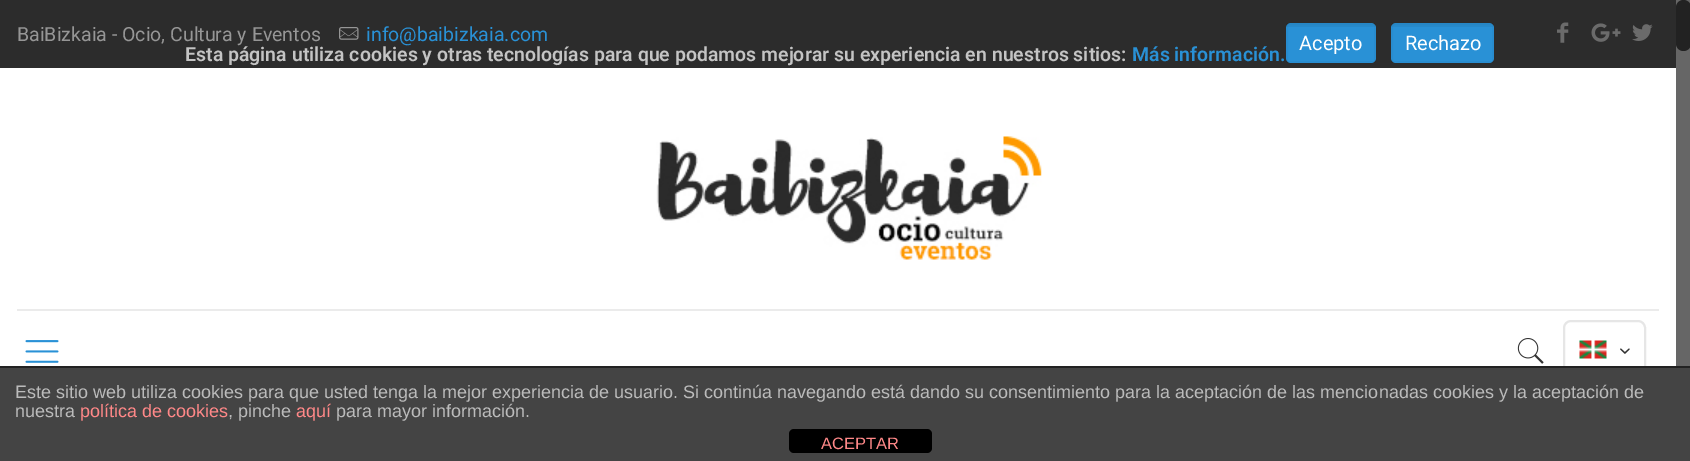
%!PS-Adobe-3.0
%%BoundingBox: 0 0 1690 461
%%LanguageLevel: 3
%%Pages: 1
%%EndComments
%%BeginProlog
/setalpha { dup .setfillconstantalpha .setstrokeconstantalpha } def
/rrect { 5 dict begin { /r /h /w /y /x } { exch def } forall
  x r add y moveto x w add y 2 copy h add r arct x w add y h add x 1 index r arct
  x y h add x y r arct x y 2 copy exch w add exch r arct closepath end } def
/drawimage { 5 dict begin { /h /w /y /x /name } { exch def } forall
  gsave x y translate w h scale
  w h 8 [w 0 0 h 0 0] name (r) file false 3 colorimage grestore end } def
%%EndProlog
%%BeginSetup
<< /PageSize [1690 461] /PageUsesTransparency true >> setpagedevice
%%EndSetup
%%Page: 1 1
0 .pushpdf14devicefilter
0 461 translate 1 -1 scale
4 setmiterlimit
0.173 setgray
0 0 1690 461 rectfill
(images/1.raw) 339 27 20 13 drawimage
(images/2.raw) 1557 22 12 21 drawimage
(images/3.raw) 1591 23 30 19 drawimage
(images/4.raw) 1632 24 21 17 drawimage
1 setgray
0 68 1676 298 rectfill
0.922 setgray
17 309 1642 2 rectfill
(images/5.raw) 656 136 386 124 drawimage
(images/6.raw) 25 340 34 23 drawimage
(images/7.raw) 1517 338 27 26 drawimage
0.902 setgray
2 setlinewidth
1564 321 81 56 7 rrect stroke
(images/8.raw) 1579 340 28 19 drawimage
(images/9.raw) 1620 348 10 6 drawimage
0.4 setgray
1676 0 14 366 rectfill
0.133 setgray
1676 0 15 51 7.5 rrect fill
0.161 0.569 0.839 setrgbcolor
1286 23 90 40 5 rrect fill
0.05 setalpha
0 setgray
1286 23 89 4 rectfill
0.03 setalpha
1287 24 88 38 rectstroke
1 setalpha
0.161 0.569 0.839 setrgbcolor
1391 23 103 40 5 rrect fill
0.05 setalpha
0 setgray
1392 23 101 4 rectfill
0.03 setalpha
1392 24 101 38 rectstroke
1 setalpha
0.267 setgray
0 368 1690 93 rectfill
0.133 setgray
0 366 1690 2 rectfill
0 setgray
789 429 143 24 5 rrect fill
/Roboto-Regular [19.5 0 0 -19.5 0 0] selectfont
0.588 setgray
17 41 moveto (BaiBizkaia - Ocio, Cultura y Eventos) show
0.161 0.569 0.839 setrgbcolor
366 41 moveto (info@baibizkaia.com) show
/Roboto-SemiBold [19.5 0 0 -19.5 0 0] selectfont
0.769 setgray
185 61 moveto (Esta página utiliza cookies y otras tecnologías para que podamos mejorar su experiencia en nuestros sitios:) show
0.161 0.569 0.839 setrgbcolor
1132 61 moveto (Más información.) show
/Roboto-Regular [20 0 0 -20 0 0] selectfont
1 setgray
1299 50 moveto (Acepto) show
1405 50 moveto (Rechazo) show
/LiberationSans-Regular [18 0 0 -18 0 0] selectfont
0.733 setgray
15 398 moveto (Este sitio web utiliza cookies para que usted tenga la mejor experiencia de usuario. Si continúa navegando está dando su consentimiento para la aceptación de las mencionadas cookies y la aceptación de) show
15 417 moveto (nuestra) show
1 0.533 0.533 setrgbcolor
80 417 moveto (política de cookies) show
0.733 setgray
228 417 moveto (, pinche) show
1 0.533 0.533 setrgbcolor
296 417 moveto (aquí) show
0.733 setgray
336 417 moveto (para mayor información.) show
/LiberationSans-Regular [16.5 0 0 -16.5 0 0] selectfont
1 0.533 0.533 setrgbcolor
821 449 moveto (ACEPTAR) show
.poppdf14devicefilter showpage
%%EOF
